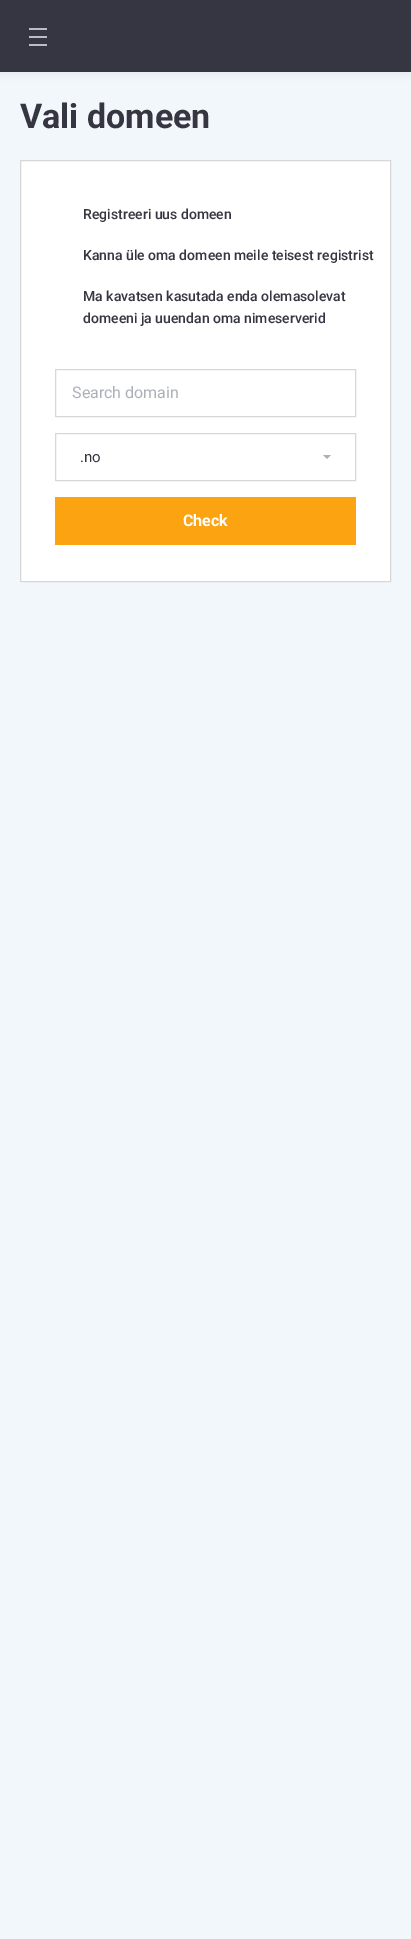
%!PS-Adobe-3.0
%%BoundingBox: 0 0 411 1939
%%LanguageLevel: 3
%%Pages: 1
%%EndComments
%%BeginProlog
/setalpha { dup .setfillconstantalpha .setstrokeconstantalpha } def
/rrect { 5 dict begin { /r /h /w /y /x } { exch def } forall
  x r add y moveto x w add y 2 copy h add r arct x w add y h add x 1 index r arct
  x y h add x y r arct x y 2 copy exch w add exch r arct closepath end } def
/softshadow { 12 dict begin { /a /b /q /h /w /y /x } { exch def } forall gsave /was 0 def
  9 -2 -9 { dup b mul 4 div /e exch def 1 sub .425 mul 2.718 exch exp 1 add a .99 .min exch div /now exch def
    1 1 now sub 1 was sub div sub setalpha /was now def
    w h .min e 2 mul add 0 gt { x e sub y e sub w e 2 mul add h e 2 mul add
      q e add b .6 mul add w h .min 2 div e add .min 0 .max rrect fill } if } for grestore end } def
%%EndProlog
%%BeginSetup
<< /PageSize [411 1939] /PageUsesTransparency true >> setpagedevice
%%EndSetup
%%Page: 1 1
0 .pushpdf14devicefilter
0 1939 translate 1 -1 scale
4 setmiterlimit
0.949 0.969 0.984 setrgbcolor
0 0 411 1939 rectfill
0 0.055 0.271 setrgbcolor
0 2 411 72 0 5 0.05 softshadow
0.212 0.208 0.259 setrgbcolor
0 0 411 72 rectfill
0.725 0.741 0.773 setrgbcolor
29 28 18 2 rectfill
29 36 18 2 rectfill
29 44 18 2 rectfill
1 setgray
newpath 20.5 160.5 moveto 390.5 160.5 lineto 390.5 581.5 lineto 20.5 581.5 lineto closepath gsave fill grestore
0.843 0.843 0.851 setrgbcolor
stroke
55.5 369.5 300 47 rectstroke
55.5 433.5 300 47 rectstroke
0.675 0.69 0.722 setrgbcolor
newpath 323 455 moveto 331 455 lineto 327 459 lineto closepath fill
0.988 0.639 0.067 setrgbcolor
55 497 301 48 rectfill
/Roboto-Bold [34 0 0 -34 0 0] selectfont
0.212 0.208 0.259 setrgbcolor
20 128 moveto (Vali domeen) show
/Roboto-Medium [14 0 0 -14 0 0] selectfont
83 219 moveto (Registreeri uus domeen) show
83 260 moveto (Kanna üle oma domeen meile teisest registrist) show
83 301 moveto (Ma kavatsen kasutada enda olemasolevat) show
83 323 moveto (domeeni ja uuendan oma nimeserverid) show
/Roboto-Regular [16 0 0 -16 0 0] selectfont
0.675 0.69 0.722 setrgbcolor
72 398 moveto (Search domain) show
/Roboto-Regular [15 0 0 -15 0 0] selectfont
0.212 0.208 0.259 setrgbcolor
80 462 moveto (.no) show
/Roboto-Bold [16 0 0 -16 0 0] selectfont
1 setgray
183 526 moveto (Check) show
.poppdf14devicefilter showpage
%%EOF
